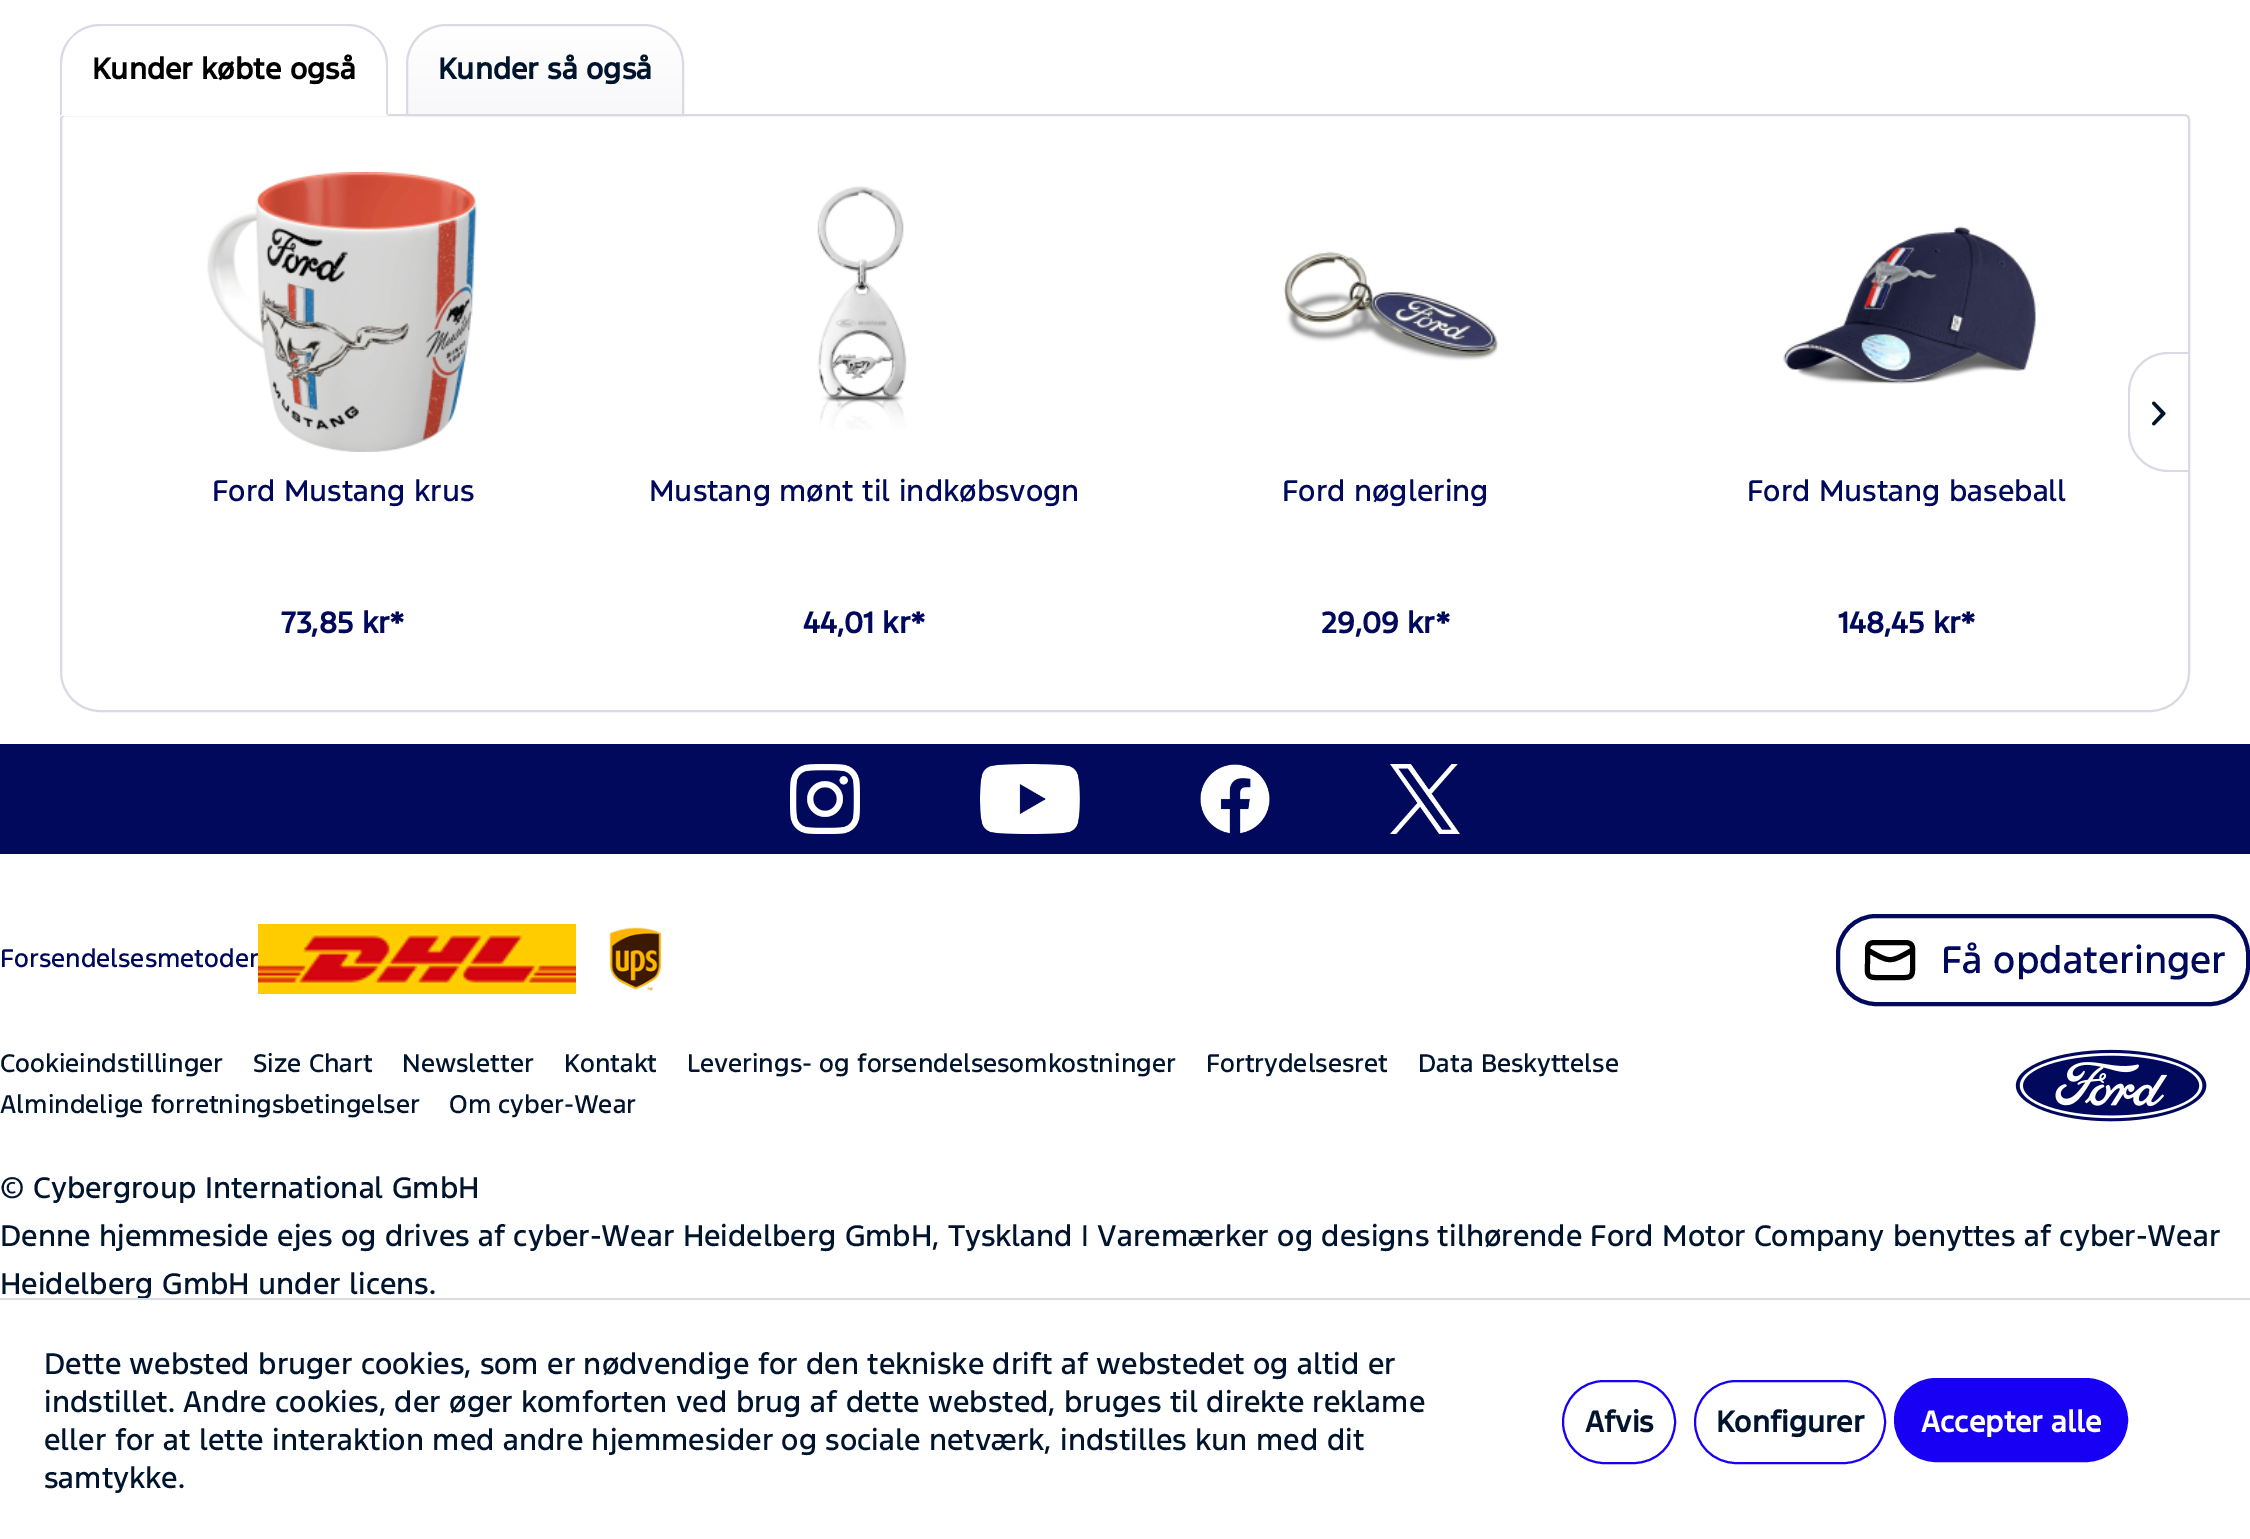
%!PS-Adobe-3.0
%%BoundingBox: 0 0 2250 1539
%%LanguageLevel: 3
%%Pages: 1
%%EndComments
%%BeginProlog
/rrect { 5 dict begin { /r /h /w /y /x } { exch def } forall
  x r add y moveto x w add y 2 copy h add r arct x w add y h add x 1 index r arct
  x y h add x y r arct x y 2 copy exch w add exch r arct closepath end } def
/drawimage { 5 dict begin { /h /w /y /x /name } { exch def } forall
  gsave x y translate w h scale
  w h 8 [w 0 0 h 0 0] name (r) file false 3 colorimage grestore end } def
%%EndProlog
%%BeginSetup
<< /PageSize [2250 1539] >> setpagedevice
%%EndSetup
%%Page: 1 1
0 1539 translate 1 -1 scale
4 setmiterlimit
1 setgray
0 0 2250 1539 rectfill
0.855 0.855 0.898 setrgbcolor
2 setlinewidth
newpath 66 115 moveto 2184 115 lineto 2187 115 2189 117 2189 120 curveto 2189 672 lineto 2189 693.5 2171.5 711 2150 711 curveto 100 711 lineto 78.5 711 61 693.5 61 672 curveto 61 120 lineto 61 117 63 115 66 115 curveto closepath stroke
1 setgray
newpath 100 24 moveto 348 24 lineto 370 24 388 42 388 64 curveto 388 116 lineto 60 116 lineto 60 64 lineto 60 42 78 24 100 24 curveto closepath fill
0.855 0.855 0.898 setrgbcolor
newpath 100 24 moveto 89 24 79 28 72 36 curveto 73 37 lineto 80 30 90 26 100 26 curveto 348 26 lineto 358 26 368 30 375 37 curveto 376 36 lineto 369 28 359 24 348 24 curveto closepath fill
newpath 388 116 moveto 388 64 lineto 388 53 384 43 376 36 curveto 375 37 lineto 382 44 386 54 386 64 curveto 386 114 lineto closepath fill
1 setgray
newpath 388 116 moveto 386 114 lineto 62 114 lineto 60 116 lineto closepath fill
0.855 0.855 0.898 setrgbcolor
newpath 60 116 moveto 62 114 lineto 62 64 lineto 62 54 66 44 73 37 curveto 72 36 lineto 64 43 60 53 60 64 curveto closepath fill
gsave newpath 446 26 moveto 644 26 lineto 665 26 682 43 682 64 curveto 682 114 lineto 408 114 lineto 408 64 lineto 408 43 425 26 446 26 curveto closepath clip newpath
<< /ShadingType 2 /ColorSpace /DeviceRGB /Coords [545 26 545 114] /Extend [true true] /Function << /FunctionType 2 /Domain [0 1] /C0 [1 1 1] /C1 [0.973 0.973 0.98] /N 1 >> >> shfill grestore
newpath 446 25 moveto 644 25 lineto 665.5 25 683 42.5 683 64 curveto 683 115 lineto 407 115 lineto 407 64 lineto 407 42.5 424.5 25 446 25 curveto closepath stroke
newpath 2168 352 moveto 2188 352 lineto 2188 472 lineto 2168 472 lineto 2146 472 2128 454 2128 432 curveto 2128 392 lineto 2128 370 2146 352 2168 352 curveto closepath 2168 354 moveto 2188 354 lineto 2188 470 lineto 2168 470 lineto 2147 470 2130 453 2130 432 curveto 2130 392 lineto 2130 371 2147 354 2168 354 curveto closepath eofill
(images/1.raw) 2152 401 14 25 drawimage
(images/2.raw) 207 172 270 280 drawimage
(images/3.raw) 817 186 90 244 drawimage
(images/4.raw) 1283 251 216 110 drawimage
(images/5.raw) 1783 226 253 158 drawimage
0 0.035 0.357 setrgbcolor
0 744 2250 110 rectfill
(images/6.raw) 790 764 70 70 drawimage
(images/7.raw) 980 764 100 70 drawimage
(images/8.raw) 1200 764 70 70 drawimage
(images/9.raw) 1390 764 70 70 drawimage
(images/11.raw) 609 927 53 64 drawimage
4 setlinewidth
1838 916 410 88 38 rrect stroke
0 setgray
5 setlinewidth
1 setlinecap
1 setlinejoin
newpath 1912.5 950 moveto 1889 963 1891 963 1867.5 950 curveto 1875.5 977.5 moveto 1904.5 977.5 lineto 1911 977.5 1912.5 976 1912.5 969.5 curveto 1912.5 957 lineto 1912.5 948 1914.5 942.5 1904.5 942.5 curveto 1875.5 942.5 lineto 1869 942.5 1867.5 944 1867.5 950.5 curveto 1867.5 963 lineto 1867.5 972 1865.5 977.5 1875.5 977.5 curveto closepath stroke
(images/12.raw) 2015 1049 192 73 drawimage
0.09 0 0.957 setrgbcolor
2 setlinewidth
0 setlinecap
0 setlinejoin
1563 1381 112 82 41 rrect stroke
1695 1381 190 82 41 rrect stroke
1895 1379 232 82 41 rrect gsave fill grestore
stroke
/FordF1-Bold [28 0 0 -28 0 0] selectfont
0 setgray
92 79 moveto (Kunder købte også) show
0 0.078 0.18 setrgbcolor
438 79 moveto (Kunder så også) show
/FordF1-Medium [28 0 0 -28 0 0] selectfont
0 0.035 0.357 setrgbcolor
212 501 moveto (Ford Mustang krus) show
/FordF1-Bold [28 0 0 -28 0 0] selectfont
281 633 moveto (73,85 kr*) show
/FordF1-Medium [28 0 0 -28 0 0] selectfont
649 501 moveto (Mustang mønt til indkøbsvogn) show
/FordF1-Bold [28 0 0 -28 0 0] selectfont
803 633 moveto (44,01 kr*) show
/FordF1-Medium [28 0 0 -28 0 0] selectfont
1282 501 moveto (Ford nøglering) show
/FordF1-Bold [28 0 0 -28 0 0] selectfont
1321 633 moveto (29,09 kr*) show
/FordF1-Medium [28 0 0 -28 0 0] selectfont
1747 501 moveto (Ford Mustang baseball) show
/FordF1-Bold [28 0 0 -28 0 0] selectfont
1838 633 moveto (148,45 kr*) show
/FordF1-Medium [24 0 0 -24 0 0] selectfont
0 967 moveto (Forsendelsesmetoder) show
(images/10.raw) 258 924 318 70 drawimage
/FordF1-Medium [36 0 0 -36 0 0] selectfont
1941 973 moveto (Få opdateringer) show
/FordF1-Medium [24 0 0 -24 0 0] selectfont
0 0.078 0.18 setrgbcolor
0 1072 moveto (Cookieindstillinger) show
253 1072 moveto (Size Chart) show
402 1072 moveto (Newsletter) show
564 1072 moveto (Kontakt) show
687 1072 moveto (Leverings- og forsendelsesomkostninger) show
1206 1072 moveto (Fortrydelsesret) show
1418 1072 moveto (Data Beskyttelse) show
0 1113 moveto (Almindelige forretningsbetingelser) show
449 1113 moveto (Om cyber-Wear) show
/FordF1-Medium [28 0 0 -28 0 0] selectfont
0 1198 moveto (© Cybergroup International GmbH) show
0 1246 moveto (Denne hjemmeside ejes og drives af cyber-Wear Heidelberg GmbH, Tyskland | Varemærker og designs tilhørende Ford Motor Company benyttes af cyber-Wear) show
0 1294 moveto (Heidelberg GmbH under licens.) show
0.855 0.855 0.898 setrgbcolor
0 1298 2250 2 rectfill
0 0.078 0.18 setrgbcolor
44 1374 moveto (Dette websted bruger cookies, som er nødvendige for den tekniske drift af webstedet og altid er) show
44 1412 moveto (indstillet. Andre cookies, der øger komforten ved brug af dette websted, bruges til direkte reklame) show
44 1450 moveto (eller for at lette interaktion med andre hjemmesider og sociale netværk, indstilles kun med dit) show
44 1488 moveto (samtykke.) show
/FordF1-Bold [28 0 0 -28 0 0] selectfont
1585 1432 moveto (Afvis) show
1716 1432 moveto (Konfigurer) show
1 setgray
1921 1432 moveto (Accepter alle) show
showpage
%%EOF
